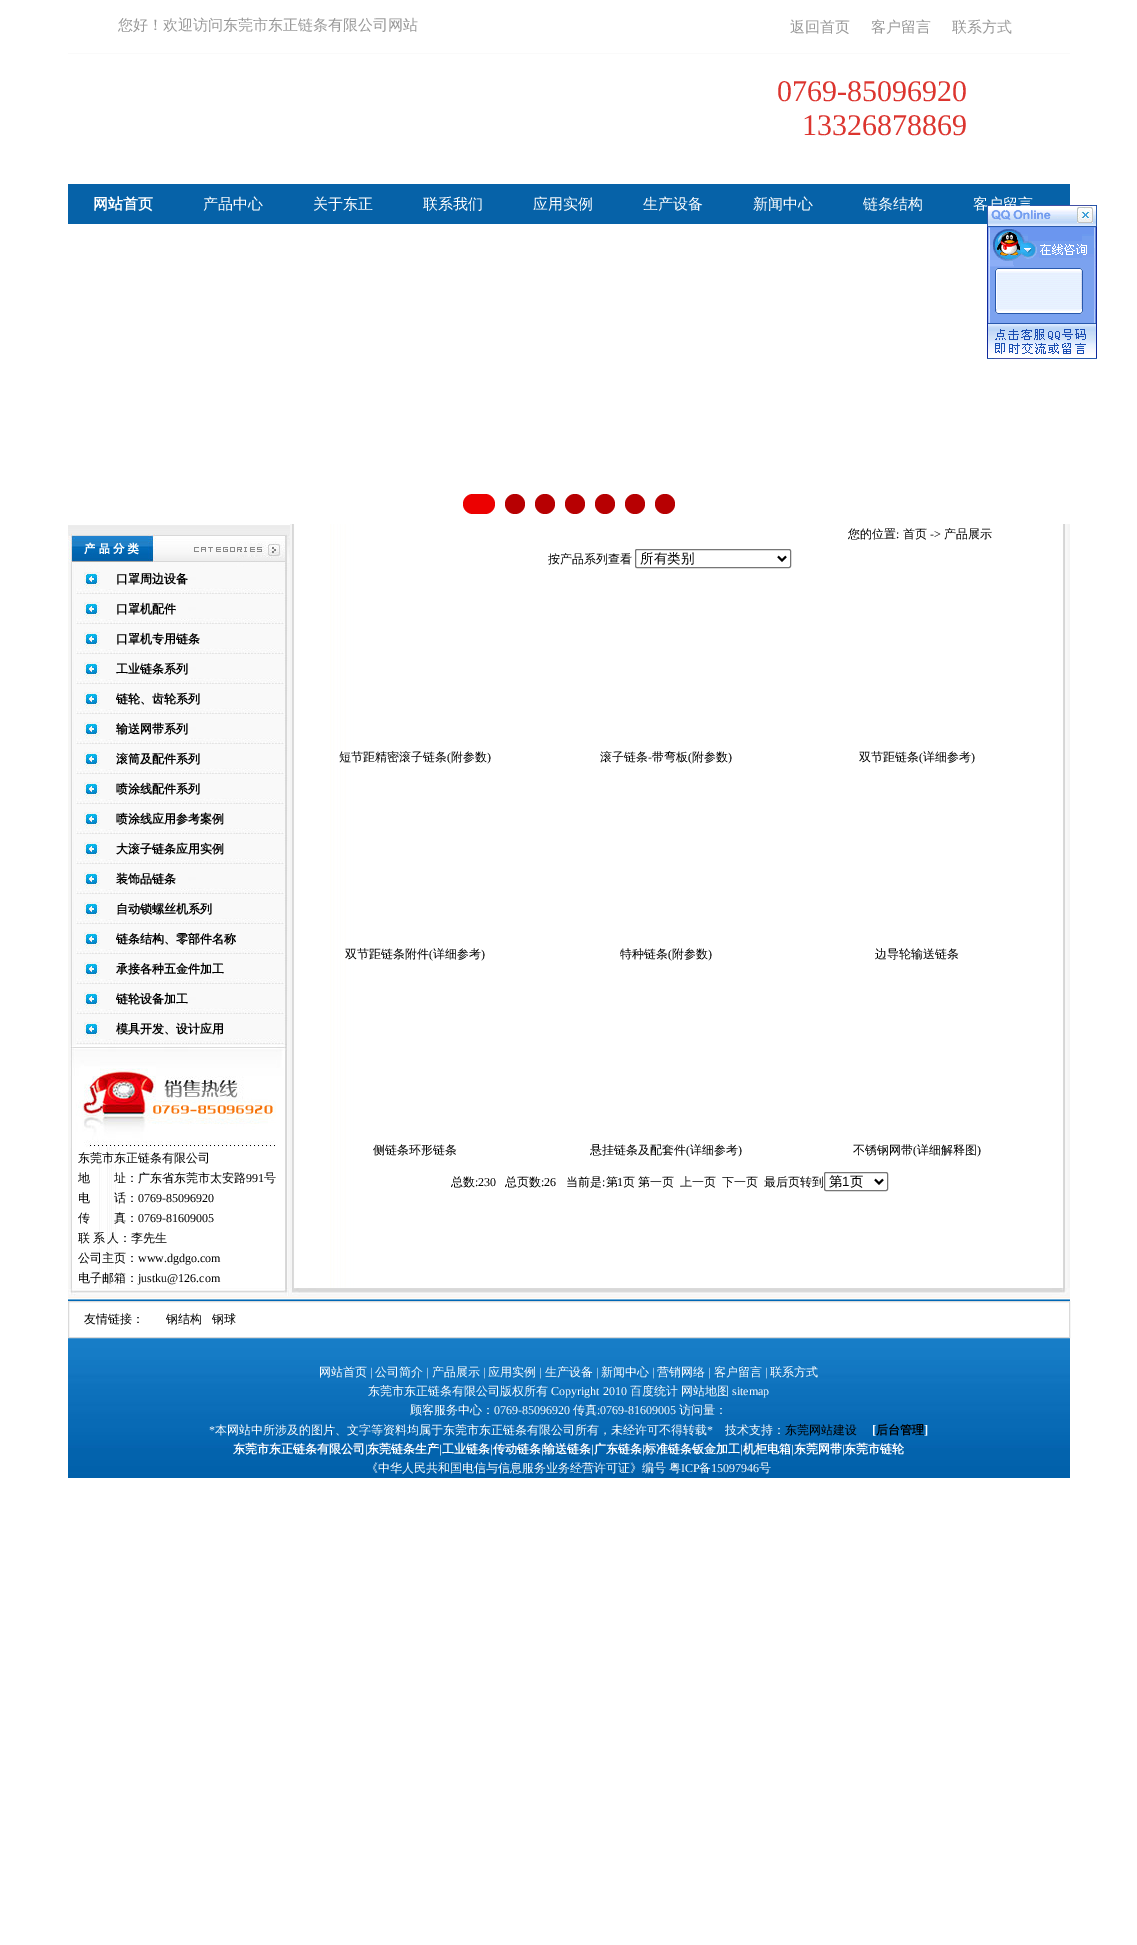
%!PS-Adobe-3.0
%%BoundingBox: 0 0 1137 1945
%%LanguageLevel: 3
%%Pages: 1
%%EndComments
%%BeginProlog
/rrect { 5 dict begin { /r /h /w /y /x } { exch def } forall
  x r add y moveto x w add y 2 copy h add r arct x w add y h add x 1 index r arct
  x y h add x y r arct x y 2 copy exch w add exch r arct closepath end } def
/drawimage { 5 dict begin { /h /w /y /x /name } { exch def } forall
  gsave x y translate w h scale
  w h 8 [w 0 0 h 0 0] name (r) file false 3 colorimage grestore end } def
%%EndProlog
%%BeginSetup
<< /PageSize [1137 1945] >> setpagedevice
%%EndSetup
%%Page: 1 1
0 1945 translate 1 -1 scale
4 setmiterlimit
1 setgray
0 0 1137 1945 rectfill
0.98 setgray
68 53 1002 1 rectfill
0.024 0.384 0.659 setrgbcolor
68 184 1002 40 rectfill
(images/1.raw) 987 205 110 70 drawimage
(images/2.raw) 987 275 110 34 drawimage
(images/3.raw) 987 309 110 50 drawimage
0.925 0.004 0.004 setrgbcolor
463 494 32 20 10 rrect fill
0.718 0 0.008 setrgbcolor
newpath 515 504 10 0 360 arc closepath fill
newpath 545 504 10 0 360 arc closepath fill
newpath 575 504 10 0 360 arc closepath fill
newpath 605 504 10 0 360 arc closepath fill
newpath 635 504 10 0 360 arc closepath fill
newpath 665 504 10 0 360 arc closepath fill
(images/4.raw) 68 564 222 724 drawimage
(images/5.raw) 68 524 222 40 drawimage
(images/6.raw) 72 564 216 480 drawimage
(images/7.raw) 70 1044 218 104 drawimage
(images/8.raw) 99 1148 17 140 drawimage
(images/9.raw) 290 524 780 764 drawimage
0.463 setgray
635.5 549.5 155 18 1.5 rrect stroke
0 setgray
2 setlinewidth
newpath 778 556.5 moveto 782 560.5 lineto 786 556.5 lineto stroke
0.463 setgray
1 setlinewidth
824.5 1172.5 63 18 1.5 rrect stroke
0 setgray
2 setlinewidth
newpath 875 1179.5 moveto 879 1183.5 lineto 883 1179.5 lineto stroke
(images/10.raw) 68 1288 1002 190 drawimage
1 setgray
newpath 68.5 1301.5 moveto 1069.5 1301.5 lineto 1069.5 1337.5 lineto 68.5 1337.5 lineto closepath gsave fill grestore
0.855 setgray
1 setlinewidth
stroke
/WenQuanYiZenHei-Medium [15 0 0 -15 0 0] selectfont
0.6 setgray
118 30 moveto (您好！欢迎访问东莞市东正链条有限公司网站) show
790 32 moveto (返回首页) show
871 32 moveto (客户留言) show
952 32 moveto (联系方式) show
/LiberationSerif-Regular [30 0 0 -30 0 0] selectfont
0.863 0.208 0.184 setrgbcolor
777 101 moveto (0769-85096920) show
802 135 moveto (13326878869) show
/WenQuanYiZenHei-Bold [15 0 0 -15 0 0] selectfont
1 setgray
93 209 moveto (网站首页) show
/WenQuanYiZenHei-Medium [15 0 0 -15 0 0] selectfont
203 209 moveto (产品中心) show
313 209 moveto (关于东正) show
423 209 moveto (联系我们) show
533 209 moveto (应用实例) show
643 209 moveto (生产设备) show
753 209 moveto (新闻中心) show
863 209 moveto (链条结构) show
973 209 moveto (客户留言) show
/WenQuanYiZenHei-Bold [12 0 0 -12 0 0] selectfont
0 setgray
116 583 moveto (口罩周边设备) show
116 613 moveto (口罩机配件) show
116 643 moveto (口罩机专用链条) show
116 673 moveto (工业链条系列) show
116 703 moveto (链轮、齿轮系列) show
116 733 moveto (输送网带系列) show
116 763 moveto (滚筒及配件系列) show
116 793 moveto (喷涂线配件系列) show
116 823 moveto (喷涂线应用参考案例) show
116 853 moveto (大滚子链条应用实例) show
116 883 moveto (装饰品链条) show
116 913 moveto (自动锁螺丝机系列) show
116 943 moveto (链条结构、零部件名称) show
116 973 moveto (承接各种五金件加工) show
116 1003 moveto (链轮设备加工) show
116 1033 moveto (模具开发、设计应用) show
/WenQuanYiZenHei-Medium [12 0 0 -12 0 0] selectfont
78 1162 moveto (东莞市东正链条有限公司) show
78 1182 moveto (地　　址：广东省东莞市太安路) show
/LiberationSerif-Regular [12 0 0 -12 0 0] selectfont
246 1182 moveto (991) show
/WenQuanYiZenHei-Medium [12 0 0 -12 0 0] selectfont
264 1182 moveto (号) show
78 1202 moveto (电　　话：) show
/LiberationSerif-Regular [12 0 0 -12 0 0] selectfont
138 1202 moveto (0769-85096920) show
/WenQuanYiZenHei-Medium [12 0 0 -12 0 0] selectfont
78 1222 moveto (传　　真：) show
/LiberationSerif-Regular [12 0 0 -12 0 0] selectfont
138 1222 moveto (0769-81609005) show
/WenQuanYiZenHei-Medium [12 0 0 -12 0 0] selectfont
78 1242 moveto -1 0 32 (联 系 人：李先生) widthshow
78 1262 moveto (公司主页：) show
/LiberationSerif-Regular [12 0 0 -12 0 0] selectfont
138 1262 moveto (www.dgdgo.com) show
/WenQuanYiZenHei-Medium [12 0 0 -12 0 0] selectfont
78 1282 moveto (电子邮箱：) show
/LiberationSerif-Regular [12 0 0 -12 0 0] selectfont
138 1282 moveto (justku@126.com) show
/WenQuanYiZenHei-Medium [12 0 0 -12 0 0] selectfont
848 538 moveto (您的位置) show
/LiberationSerif-Regular [12 0 0 -12 0 0] selectfont
896 538 moveto (:) show
/WenQuanYiZenHei-Medium [12 0 0 -12 0 0] selectfont
903 538 moveto (首页) show
/LiberationSerif-Regular [12 0 0 -12 0 0] selectfont
930 538 moveto (->) show
/WenQuanYiZenHei-Medium [12 0 0 -12 0 0] selectfont
944 538 moveto (产品展示) show
548 563 moveto (按产品系列查看) show
/WenQuanYiZenHei-Medium [13.5 0 0 -13.5 0 0] selectfont
640 563 moveto (所有类别) show
/WenQuanYiZenHei-Medium [12 0 0 -12 0 0] selectfont
339 761 moveto (短节距精密滚子链条) show
/LiberationSerif-Regular [12 0 0 -12 0 0] selectfont
447 761 moveto (\() show
/WenQuanYiZenHei-Medium [12 0 0 -12 0 0] selectfont
451 761 moveto (附参数) show
/LiberationSerif-Regular [12 0 0 -12 0 0] selectfont
487 761 moveto (\)) show
/WenQuanYiZenHei-Medium [12 0 0 -12 0 0] selectfont
600 761 moveto (滚子链条) show
/LiberationSerif-Regular [12 0 0 -12 0 0] selectfont
648 761 moveto (-) show
/WenQuanYiZenHei-Medium [12 0 0 -12 0 0] selectfont
652 761 moveto (带弯板) show
/LiberationSerif-Regular [12 0 0 -12 0 0] selectfont
688 761 moveto (\() show
/WenQuanYiZenHei-Medium [12 0 0 -12 0 0] selectfont
692 761 moveto (附参数) show
/LiberationSerif-Regular [12 0 0 -12 0 0] selectfont
728 761 moveto (\)) show
/WenQuanYiZenHei-Medium [12 0 0 -12 0 0] selectfont
859 761 moveto (双节距链条) show
/LiberationSerif-Regular [12 0 0 -12 0 0] selectfont
919 761 moveto (\() show
/WenQuanYiZenHei-Medium [12 0 0 -12 0 0] selectfont
923 761 moveto (详细参考) show
/LiberationSerif-Regular [12 0 0 -12 0 0] selectfont
971 761 moveto (\)) show
/WenQuanYiZenHei-Medium [12 0 0 -12 0 0] selectfont
345 958 moveto (双节距链条附件) show
/LiberationSerif-Regular [12 0 0 -12 0 0] selectfont
429 958 moveto (\() show
/WenQuanYiZenHei-Medium [12 0 0 -12 0 0] selectfont
433 958 moveto (详细参考) show
/LiberationSerif-Regular [12 0 0 -12 0 0] selectfont
481 958 moveto (\)) show
/WenQuanYiZenHei-Medium [12 0 0 -12 0 0] selectfont
620 958 moveto (特种链条) show
/LiberationSerif-Regular [12 0 0 -12 0 0] selectfont
668 958 moveto (\() show
/WenQuanYiZenHei-Medium [12 0 0 -12 0 0] selectfont
672 958 moveto (附参数) show
/LiberationSerif-Regular [12 0 0 -12 0 0] selectfont
708 958 moveto (\)) show
/WenQuanYiZenHei-Medium [12 0 0 -12 0 0] selectfont
875 958 moveto (边导轮输送链条) show
373 1154 moveto (侧链条环形链条) show
590 1154 moveto (悬挂链条及配套件) show
/LiberationSerif-Regular [12 0 0 -12 0 0] selectfont
686 1154 moveto (\() show
/WenQuanYiZenHei-Medium [12 0 0 -12 0 0] selectfont
690 1154 moveto (详细参考) show
/LiberationSerif-Regular [12 0 0 -12 0 0] selectfont
738 1154 moveto (\)) show
/WenQuanYiZenHei-Medium [12 0 0 -12 0 0] selectfont
853 1154 moveto (不锈钢网带) show
/LiberationSerif-Regular [12 0 0 -12 0 0] selectfont
913 1154 moveto (\() show
/WenQuanYiZenHei-Medium [12 0 0 -12 0 0] selectfont
917 1154 moveto (详细解释图) show
/LiberationSerif-Regular [12 0 0 -12 0 0] selectfont
977 1154 moveto (\)) show
/WenQuanYiZenHei-Medium [12 0 0 -12 0 0] selectfont
451 1186 moveto (总数) show
/LiberationSerif-Regular [12 0 0 -12 0 0] selectfont
475 1186 moveto (:230) show
/WenQuanYiZenHei-Medium [12 0 0 -12 0 0] selectfont
505 1186 moveto (总页数) show
/LiberationSerif-Regular [12 0 0 -12 0 0] selectfont
541 1186 moveto (:26) show
/WenQuanYiZenHei-Medium [12 0 0 -12 0 0] selectfont
566 1186 moveto (当前是 第) show
/LiberationSerif-Regular [12 0 0 -12 0 0] selectfont
617 1186 moveto (1) show
/WenQuanYiZenHei-Medium [12 0 0 -12 0 0] selectfont
623 1186 moveto (页) show
638 1186 moveto (第一页) show
680 1186 moveto (上一页) show
722 1186 moveto (下一页) show
764 1186 moveto (最后页转到) show
/WenQuanYiZenHei-Medium [13.5 0 0 -13.5 0 0] selectfont
829 1186 moveto (第) show
/LiberationSans-Regular [13.5 0 0 -13.5 0 0] selectfont
842 1186 moveto (1) show
/WenQuanYiZenHei-Medium [13.5 0 0 -13.5 0 0] selectfont
850 1186 moveto (页) show
/LiberationSerif-Regular [12 0 0 -12 0 0] selectfont
602 1186 moveto (:) show
/WenQuanYiZenHei-Medium [12 0 0 -12 0 0] selectfont
84 1323 moveto (友情链接：) show
166 1323 moveto (钢结构) show
212 1323 moveto (钢球) show
1 setgray
319 1376 moveto (网站首页) show
/LiberationSerif-Regular [12 0 0 -12 0 0] selectfont
370 1376 moveto (|) show
/WenQuanYiZenHei-Medium [12 0 0 -12 0 0] selectfont
375 1376 moveto (公司简介) show
/LiberationSerif-Regular [12 0 0 -12 0 0] selectfont
426 1376 moveto (|) show
/WenQuanYiZenHei-Medium [12 0 0 -12 0 0] selectfont
432 1376 moveto (产品展示) show
/LiberationSerif-Regular [12 0 0 -12 0 0] selectfont
483 1376 moveto (|) show
/WenQuanYiZenHei-Medium [12 0 0 -12 0 0] selectfont
488 1376 moveto (应用实例) show
/LiberationSerif-Regular [12 0 0 -12 0 0] selectfont
539 1376 moveto (|) show
/WenQuanYiZenHei-Medium [12 0 0 -12 0 0] selectfont
545 1376 moveto (生产设备) show
/LiberationSerif-Regular [12 0 0 -12 0 0] selectfont
596 1376 moveto (|) show
/WenQuanYiZenHei-Medium [12 0 0 -12 0 0] selectfont
601 1376 moveto (新闻中心) show
/LiberationSerif-Regular [12 0 0 -12 0 0] selectfont
652 1376 moveto (|) show
/WenQuanYiZenHei-Medium [12 0 0 -12 0 0] selectfont
657 1376 moveto (营销网络) show
/LiberationSerif-Regular [12 0 0 -12 0 0] selectfont
708 1376 moveto (|) show
/WenQuanYiZenHei-Medium [12 0 0 -12 0 0] selectfont
714 1376 moveto (客户留言) show
/LiberationSerif-Regular [12 0 0 -12 0 0] selectfont
765 1376 moveto (|) show
/WenQuanYiZenHei-Medium [12 0 0 -12 0 0] selectfont
770 1376 moveto (联系方式) show
368 1395 moveto (东莞市东正链条有限公司版权所有) show
/LiberationSerif-Regular [12 0 0 -12 0 0] selectfont
551 1395 moveto (Copyright 2010) show
/WenQuanYiZenHei-Medium [12 0 0 -12 0 0] selectfont
630 1395 moveto (百度统计) show
681 1395 moveto (网站地图) show
/LiberationSerif-Regular [12 0 0 -12 0 0] selectfont
732 1395 moveto (sitemap) show
/WenQuanYiZenHei-Medium [12 0 0 -12 0 0] selectfont
410 1414 moveto (顾客服务中心：) show
/LiberationSerif-Regular [12 0 0 -12 0 0] selectfont
494 1414 moveto (0769-85096920) show
/WenQuanYiZenHei-Medium [12 0 0 -12 0 0] selectfont
573 1414 moveto (传真) show
/LiberationSerif-Regular [12 0 0 -12 0 0] selectfont
597 1414 moveto (:0769-81609005) show
/WenQuanYiZenHei-Medium [12 0 0 -12 0 0] selectfont
679 1414 moveto (访问量：) show
/LiberationSerif-Regular [12 0 0 -12 0 0] selectfont
209 1434 moveto (*) show
/WenQuanYiZenHei-Medium [12 0 0 -12 0 0] selectfont
215 1434 moveto (本网站中所涉及的图片、文字等资料均属于东莞市东正链条有限公司所有，未经许可不得转载) show
/LiberationSerif-Regular [12 0 0 -12 0 0] selectfont
707 1434 moveto (*) show
/WenQuanYiZenHei-Medium [12 0 0 -12 0 0] selectfont
725 1434 moveto (技术支持：) show
0 setgray
785 1434 moveto (东莞网站建设) show
/LiberationSerif-Bold [13 0 0 -13 0 0] selectfont
1 setgray
872 1434 moveto ([) show
/WenQuanYiZenHei-Bold [12 0 0 -12 0 0] selectfont
0 setgray
876 1434 moveto (后台管理) show
/LiberationSerif-Bold [13 0 0 -13 0 0] selectfont
1 setgray
924 1434 moveto (]) show
/WenQuanYiZenHei-Bold [12 0 0 -12 0 0] selectfont
233 1453 moveto (东莞市东正链条有限公司) show
/LiberationSerif-Bold [12 0 0 -12 0 0] selectfont
365 1453 moveto (|) show
/WenQuanYiZenHei-Bold [12 0 0 -12 0 0] selectfont
367 1453 moveto (东莞链条生产) show
/LiberationSerif-Bold [12 0 0 -12 0 0] selectfont
439 1453 moveto (|) show
/WenQuanYiZenHei-Bold [12 0 0 -12 0 0] selectfont
442 1453 moveto (工业链条) show
/LiberationSerif-Bold [12 0 0 -12 0 0] selectfont
490 1453 moveto (|) show
/WenQuanYiZenHei-Bold [12 0 0 -12 0 0] selectfont
493 1453 moveto (传动链条) show
/LiberationSerif-Bold [12 0 0 -12 0 0] selectfont
541 1453 moveto (|) show
/WenQuanYiZenHei-Bold [12 0 0 -12 0 0] selectfont
543 1453 moveto (输送链条) show
/LiberationSerif-Bold [12 0 0 -12 0 0] selectfont
591 1453 moveto (|) show
/WenQuanYiZenHei-Bold [12 0 0 -12 0 0] selectfont
594 1453 moveto (广东链条) show
/LiberationSerif-Bold [12 0 0 -12 0 0] selectfont
642 1453 moveto (|) show
/WenQuanYiZenHei-Bold [12 0 0 -12 0 0] selectfont
644 1453 moveto (标准链条钣金加工) show
/LiberationSerif-Bold [12 0 0 -12 0 0] selectfont
740 1453 moveto (|) show
/WenQuanYiZenHei-Bold [12 0 0 -12 0 0] selectfont
743 1453 moveto (机柜电箱) show
/LiberationSerif-Bold [12 0 0 -12 0 0] selectfont
791 1453 moveto (|) show
/WenQuanYiZenHei-Bold [12 0 0 -12 0 0] selectfont
794 1453 moveto (东莞网带) show
/LiberationSerif-Bold [12 0 0 -12 0 0] selectfont
842 1453 moveto (|) show
/WenQuanYiZenHei-Bold [12 0 0 -12 0 0] selectfont
844 1453 moveto (东莞市链轮) show
/WenQuanYiZenHei-Medium [12 0 0 -12 0 0] selectfont
366 1472 moveto (《中华人民共和国电信与信息服务业务经营许可证》编号) show
669 1472 moveto (粤) show
/LiberationSerif-Regular [12 0 0 -12 0 0] selectfont
681 1472 moveto (ICP) show
/WenQuanYiZenHei-Medium [12 0 0 -12 0 0] selectfont
699 1472 moveto (备) show
/LiberationSerif-Regular [12 0 0 -12 0 0] selectfont
711 1472 moveto (15097946) show
/WenQuanYiZenHei-Medium [12 0 0 -12 0 0] selectfont
759 1472 moveto (号) show
showpage
%%EOF
